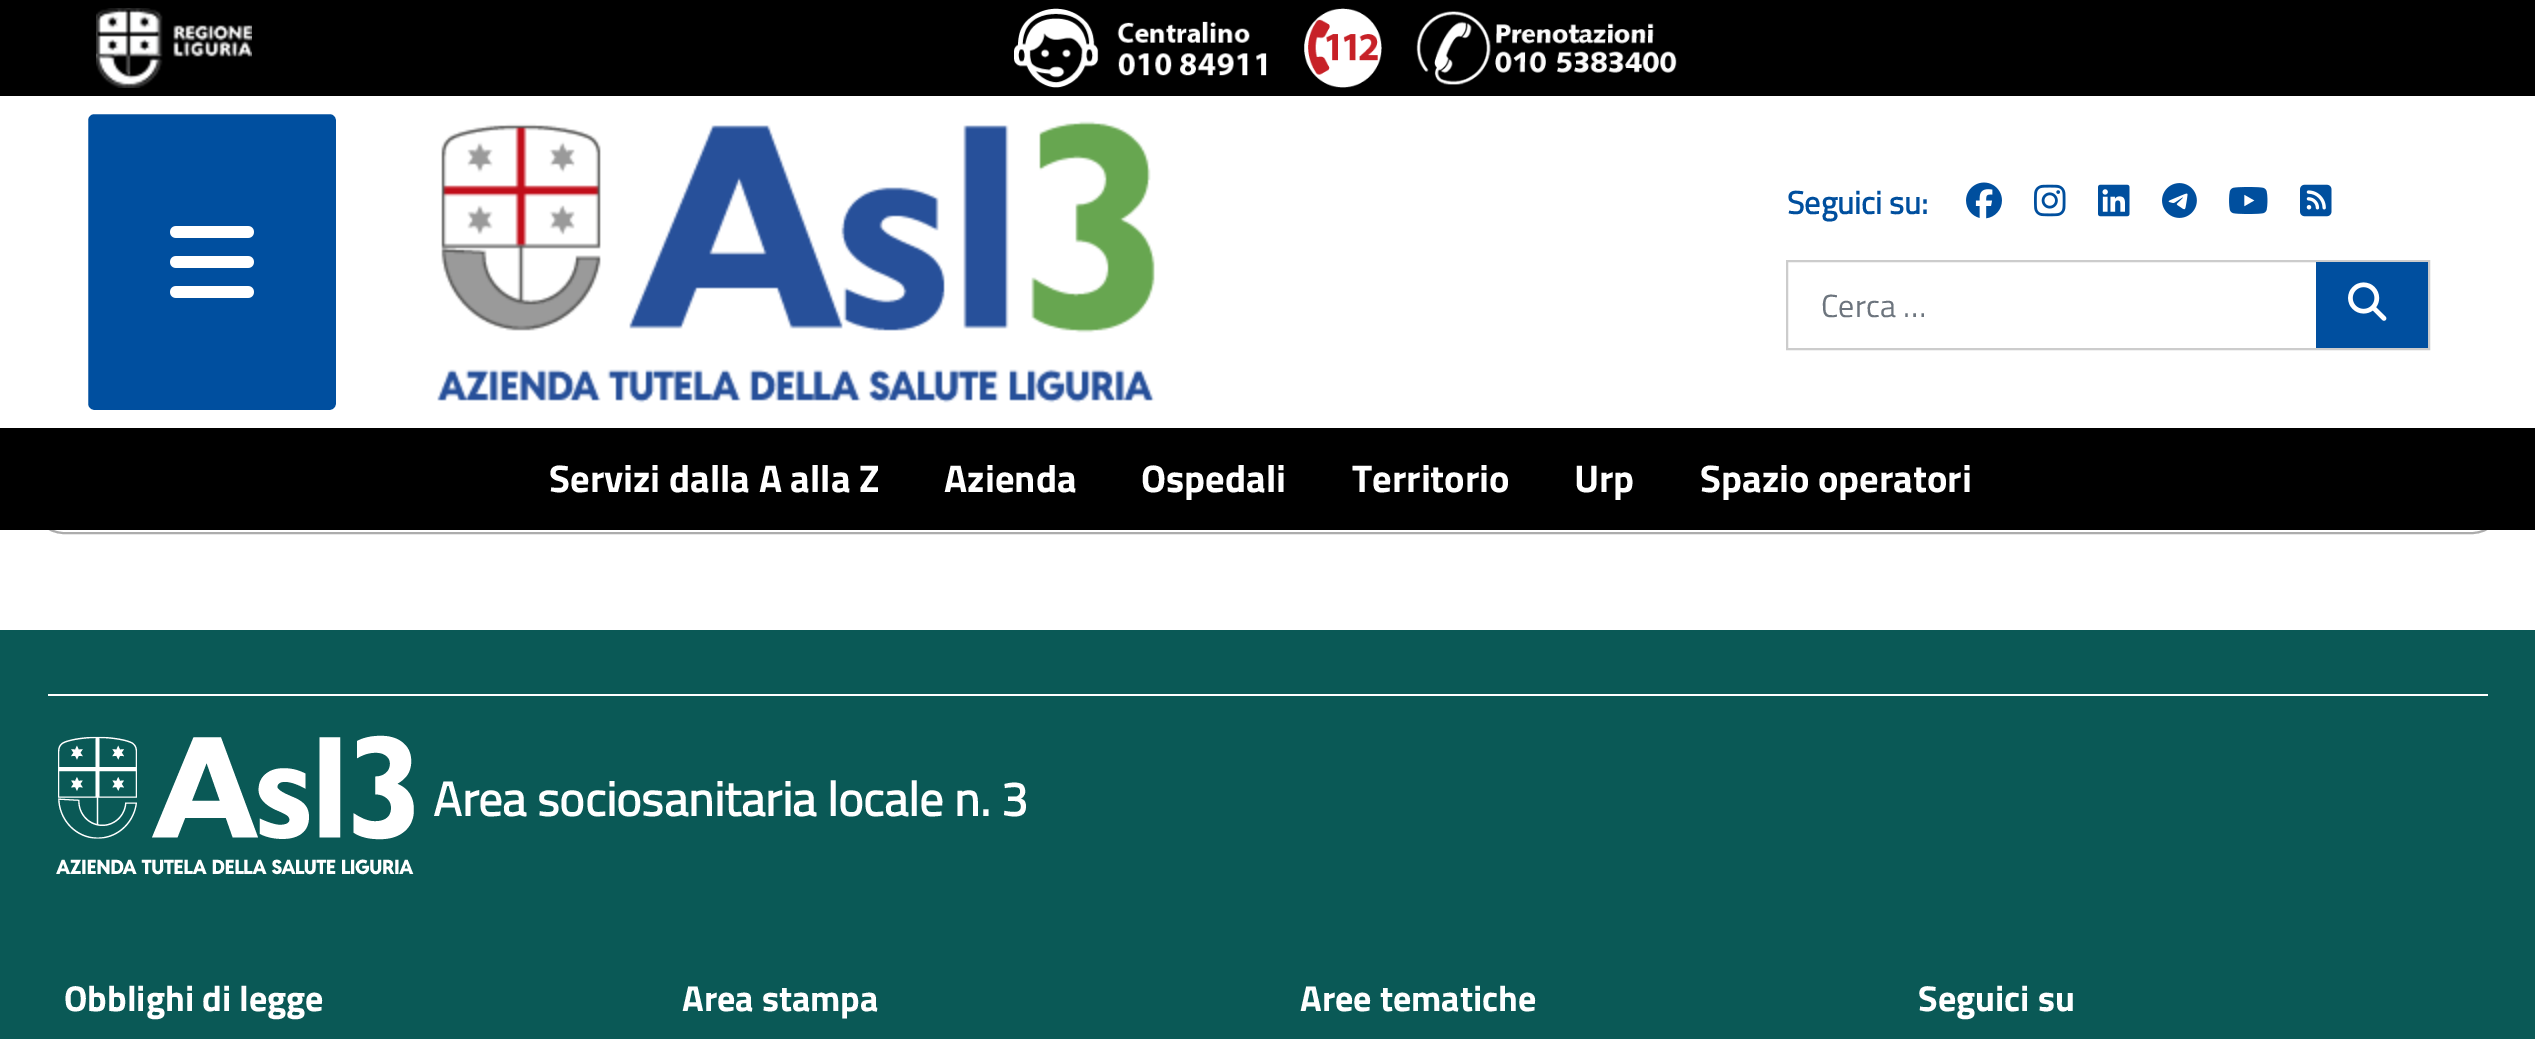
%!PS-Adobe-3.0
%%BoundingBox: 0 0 2535 1039
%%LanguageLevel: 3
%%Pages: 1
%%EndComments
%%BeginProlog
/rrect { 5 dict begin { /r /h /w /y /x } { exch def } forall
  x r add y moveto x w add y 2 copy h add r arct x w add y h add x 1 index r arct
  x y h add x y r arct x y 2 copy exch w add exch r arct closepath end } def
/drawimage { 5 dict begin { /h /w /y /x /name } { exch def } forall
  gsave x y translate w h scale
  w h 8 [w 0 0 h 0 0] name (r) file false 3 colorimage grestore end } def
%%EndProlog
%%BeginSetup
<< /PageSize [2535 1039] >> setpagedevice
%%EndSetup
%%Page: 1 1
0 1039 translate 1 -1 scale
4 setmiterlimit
1 setgray
0 0 2535 1039 rectfill
0.675 setgray
2 setlinewidth
33 399 2470 134 31 rrect stroke
1 setgray
32 398 2472 30 rectfill
0 setgray
0 0 2535 96 rectfill
(images/1.raw) 96 8 156 80 drawimage
(images/2.raw) 1014 8 253 80 drawimage
(images/3.raw) 1304 8 78 80 drawimage
(images/4.raw) 1416 11 261 74 drawimage
0 0.31 0.624 setrgbcolor
87 113 250 298 7 rrect gsave fill grestore
1 setgray
stroke
(images/5.raw) 170 226 84 72 drawimage
(images/6.raw) 437 121 718 282 drawimage
(images/7.raw) 1966 182 36 37 drawimage
(images/8.raw) 2034 184 32 33 drawimage
(images/9.raw) 2098 184 32 33 drawimage
(images/10.raw) 2162 183 35 35 drawimage
(images/11.raw) 2229 187 39 27 drawimage
(images/12.raw) 2300 184 32 33 drawimage
0.8 setgray
1787 261 642 88 rectstroke
0 0.31 0.624 setrgbcolor
2316 262 112 86 rectfill
(images/13.raw) 2348 282 39 39 drawimage
0 setgray
0 428 2535 102 rectfill
0.039 0.349 0.337 setrgbcolor
0 630 2535 409 rectfill
1 setgray
48 694 2440 2 rectfill
(images/14.raw) 56 735 358 140 drawimage
/TitilliumWeb-Bold [32 0 0 -32 0 0] selectfont
0 0.31 0.62 setrgbcolor
1787 214 moveto (Seguici su:) show
/TitilliumWeb-Regular [32 0 0 -32 0 0] selectfont
0.427 0.459 0.494 setrgbcolor
1821 317 moveto (Cerca …) show
/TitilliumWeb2-Bold [38.5 0 0 -38.5 0 0] selectfont
1 setgray
549 492 moveto (Servizi dalla A alla Z) show
944 492 moveto (Azienda) show
1141 492 moveto (Ospedali) show
1352 492 moveto (Territorio) show
1574 492 moveto (Urp) show
1700 492 moveto (Spazio operatori) show
/TitilliumWeb-Bold [48 0 0 -48 0 0] selectfont
433 816 moveto (Area sociosanitaria locale n. 3) show
/TitilliumWeb2-Bold [36 0 0 -36 0 0] selectfont
64 1011 moveto (Obblighi di legge) show
682 1011 moveto (Area stampa) show
1300 1011 moveto (Aree tematiche) show
1918 1011 moveto (Seguici su) show
showpage
%%EOF
